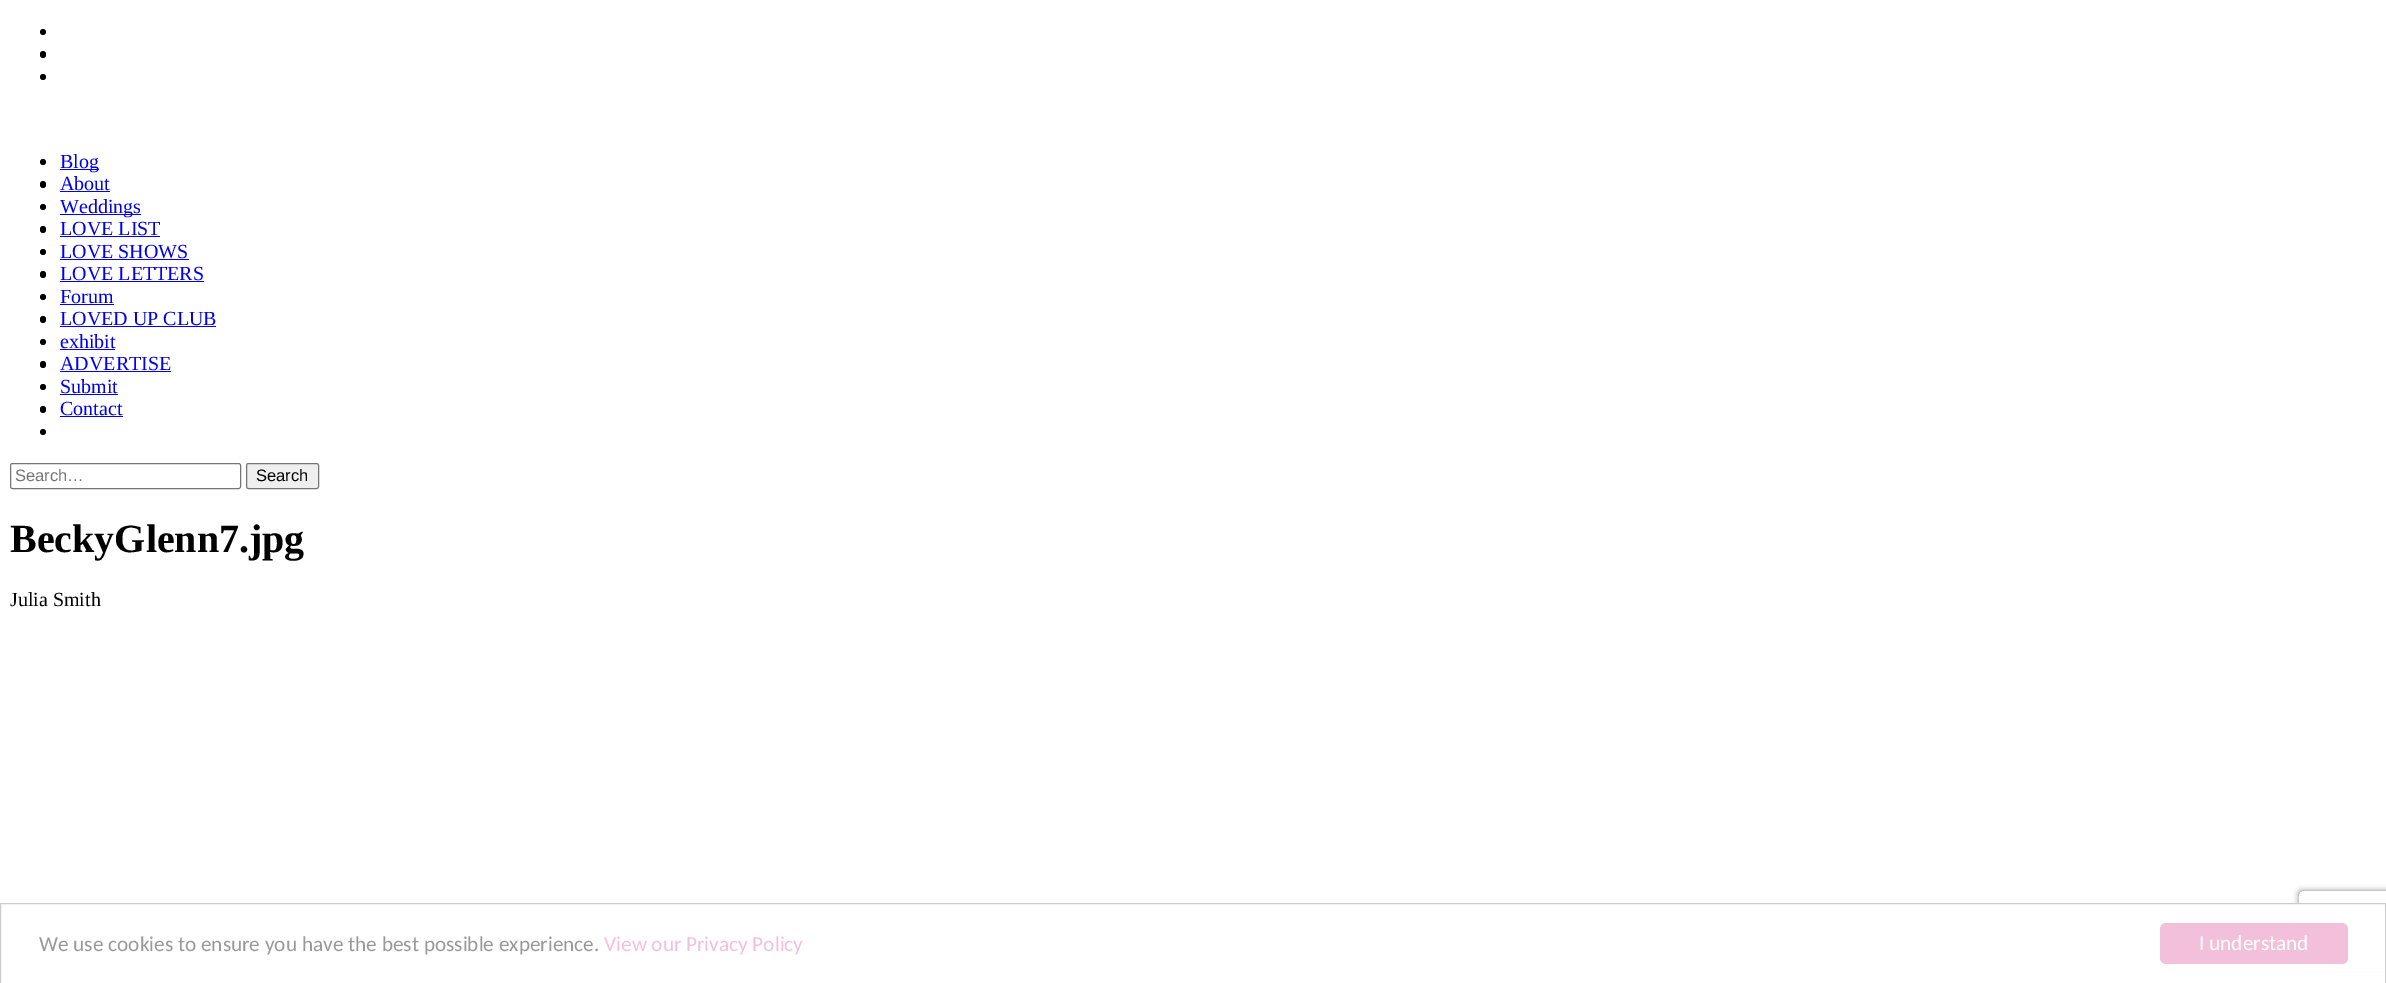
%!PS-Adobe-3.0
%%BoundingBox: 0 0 2386 983
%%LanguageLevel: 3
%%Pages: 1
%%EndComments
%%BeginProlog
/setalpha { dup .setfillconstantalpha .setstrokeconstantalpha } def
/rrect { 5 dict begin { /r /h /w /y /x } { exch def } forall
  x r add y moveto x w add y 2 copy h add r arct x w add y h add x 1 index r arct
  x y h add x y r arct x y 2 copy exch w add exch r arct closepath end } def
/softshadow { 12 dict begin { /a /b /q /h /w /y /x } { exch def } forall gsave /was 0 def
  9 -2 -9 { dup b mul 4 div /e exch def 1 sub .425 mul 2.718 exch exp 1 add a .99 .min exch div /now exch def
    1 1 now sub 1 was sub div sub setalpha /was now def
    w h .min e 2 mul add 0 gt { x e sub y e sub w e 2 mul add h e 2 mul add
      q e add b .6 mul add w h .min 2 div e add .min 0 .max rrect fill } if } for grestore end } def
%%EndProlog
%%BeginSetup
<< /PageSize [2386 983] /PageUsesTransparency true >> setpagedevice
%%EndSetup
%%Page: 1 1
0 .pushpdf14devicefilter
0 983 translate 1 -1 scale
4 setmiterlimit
1 setgray
0 0 2386 983 rectfill
0 setgray
newpath 43 32 3 0 360 arc closepath fill
40 51 6 7 3 rrect fill
newpath 43 77 3 0 360 arc closepath fill
newpath 43 162 3 0 360 arc closepath fill
0 0 0.933 setrgbcolor
60 169 39 1 rectfill
0 setgray
40 181 6 7 3 rrect fill
0 0 0.933 setrgbcolor
60 191 50 1 rectfill
0 setgray
newpath 43 207 3 0 360 arc closepath fill
0 0 0.933 setrgbcolor
60 214 81 1 rectfill
0 setgray
40 226 6 7 3 rrect fill
0 0 0.933 setrgbcolor
60 236 100 1 rectfill
0 setgray
newpath 43 252 3 0 360 arc closepath fill
0 0 0.933 setrgbcolor
60 259 129 1 rectfill
0 setgray
40 271 6 7 3 rrect fill
0 0 0.933 setrgbcolor
60 281 144 1 rectfill
0 setgray
newpath 43 297 3 0 360 arc closepath fill
0 0 0.933 setrgbcolor
60 304 54 1 rectfill
0 setgray
40 316 6 7 3 rrect fill
0 0 0.933 setrgbcolor
60 326 156 1 rectfill
0 setgray
newpath 43 342 3 0 360 arc closepath fill
0 0 0.933 setrgbcolor
60 349 55 1 rectfill
0 setgray
40 361 6 7 3 rrect fill
0 0 0.933 setrgbcolor
60 371 111 1 rectfill
0 setgray
newpath 43 387 3 0 360 arc closepath fill
0 0 0.933 setrgbcolor
60 394 58 1 rectfill
0 setgray
40 406 6 7 3 rrect fill
0 0 0.933 setrgbcolor
60 416 63 1 rectfill
0 setgray
newpath 43 432 3 0 360 arc closepath fill
0.463 setgray
10.5 463.5 230 25 2 rrect stroke
0.937 setgray
246.5 463.5 72 25 2 rrect gsave fill grestore
0.463 setgray
stroke
gsave
newpath 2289 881 moveto 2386 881 lineto 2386 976 lineto 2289 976 lineto closepath 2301.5 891 moveto 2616.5 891 lineto 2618 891 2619 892 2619 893.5 curveto 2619 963.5 lineto 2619 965 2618 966 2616.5 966 curveto 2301.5 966 lineto 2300 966 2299 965 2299 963.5 curveto 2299 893.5 lineto 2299 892 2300 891 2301.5 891 curveto closepath eoclip newpath
0.502 setgray
2299 891 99 75 2.5 3 1 softshadow
grestore
1 setgray
2293 904 92 68 rectfill
0.8 setgray
0.5 903.5 2385 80 rectstroke
0.949 0.753 0.855 setrgbcolor
2160 923 188 41 6 rrect fill
/LiberationSerif-Regular [20 0 0 -20 0 0] selectfont
0 0 0.933 setrgbcolor
60 168 moveto (Blog) show
60 190 moveto (About) show
60 213 moveto (Weddings) show
60 235 moveto (LOVE LIST) show
60 258 moveto (LOVE SHOWS) show
60 280 moveto (LOVE LETTERS) show
60 303 moveto (Forum) show
60 325 moveto (LOVED UP CLUB) show
60 348 moveto (exhibit) show
60 370 moveto (ADVERTISE) show
60 393 moveto (Submit) show
60 415 moveto (Contact) show
/LiberationSans-Regular [16.5 0 0 -16.5 0 0] selectfont
0.459 setgray
15 481 moveto (Search…) show
0 setgray
256 481 moveto (Search) show
/LiberationSerif-Bold [40 0 0 -40 0 0] selectfont
10 552 moveto (BeckyGlenn7.jpg) show
/LiberationSerif-Regular [20 0 0 -20 0 0] selectfont
10 606 moveto (Julia Smith) show
/Carlito-Regular [21.25 0 0 -21.25 0 0] selectfont
0.6 setgray
39 951 moveto (We use cookies to ensure you have the best possible experience.) show
0.949 0.753 0.855 setrgbcolor
604 951 moveto (View our Privacy Policy) show
1 setgray
2199 950 moveto (I understand) show
.poppdf14devicefilter showpage
%%EOF
